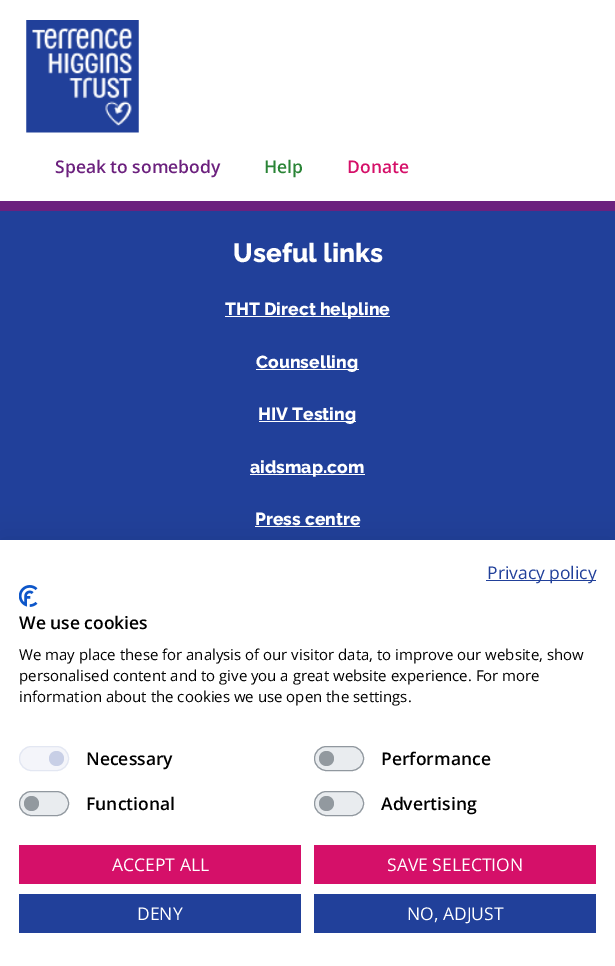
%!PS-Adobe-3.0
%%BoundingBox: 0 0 615 966
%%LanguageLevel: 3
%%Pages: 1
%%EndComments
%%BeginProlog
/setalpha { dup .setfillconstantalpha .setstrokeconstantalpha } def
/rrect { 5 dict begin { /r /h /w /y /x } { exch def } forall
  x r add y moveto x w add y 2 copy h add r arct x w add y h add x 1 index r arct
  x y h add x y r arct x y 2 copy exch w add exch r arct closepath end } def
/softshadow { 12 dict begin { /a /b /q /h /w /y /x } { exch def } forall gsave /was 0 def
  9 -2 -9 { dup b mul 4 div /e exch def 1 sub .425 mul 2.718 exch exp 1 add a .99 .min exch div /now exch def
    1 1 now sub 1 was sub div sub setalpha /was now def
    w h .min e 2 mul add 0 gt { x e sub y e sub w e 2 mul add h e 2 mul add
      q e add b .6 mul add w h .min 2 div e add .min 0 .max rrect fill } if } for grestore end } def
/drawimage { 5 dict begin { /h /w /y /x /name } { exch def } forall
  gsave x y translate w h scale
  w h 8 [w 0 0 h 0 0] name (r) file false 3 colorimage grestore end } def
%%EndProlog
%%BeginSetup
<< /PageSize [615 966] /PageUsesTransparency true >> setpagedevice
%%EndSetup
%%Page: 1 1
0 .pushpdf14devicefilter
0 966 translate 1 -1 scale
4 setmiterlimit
0.129 0.251 0.604 setrgbcolor
0 0 615 966 rectfill
1 setgray
0 0 615 201 rectfill
(images/1.raw) 26 20 113 113 drawimage
0.424 0.129 0.494 setrgbcolor
0 201 615 10 rectfill
1 setgray
225 316 165 1 rectfill
256 369 103 1 rectfill
259 421 97 1 rectfill
250 474 115 1 rectfill
255 526 105 1 rectfill
0 setgray
0 540 615 426 0 15 0.1 softshadow
1 setgray
0 540 615 426 rectfill
0.129 0.251 0.604 setrgbcolor
486 580 110 1 rectfill
(images/2.raw) 19 585 19 22 drawimage
0.957 0.961 0.98 setrgbcolor
19 746 50 25 12.5 rrect fill
0.784 0.812 0.902 setrgbcolor
newpath 56.5 758.5 7.5 0 360 arc closepath fill
0.89 0.906 0.949 setrgbcolor
19.5 746.5 49 24 12 rrect stroke
0.914 0.925 0.937 setrgbcolor
314 746 50 25 12.5 rrect fill
0.573 0.6 0.624 setrgbcolor
newpath 326.5 758.5 7.5 0 360 arc closepath fill
0.7 setalpha
0.424 0.459 0.49 setrgbcolor
314.5 746.5 49 24 12 rrect stroke
1 setalpha
0.914 0.925 0.937 setrgbcolor
19 791 50 25 12.5 rrect fill
0.573 0.6 0.624 setrgbcolor
newpath 31.5 803.5 7.5 0 360 arc closepath fill
0.7 setalpha
0.424 0.459 0.49 setrgbcolor
19.5 791.5 49 24 12 rrect stroke
1 setalpha
0.914 0.925 0.937 setrgbcolor
314 791 50 25 12.5 rrect fill
0.573 0.6 0.624 setrgbcolor
newpath 326.5 803.5 7.5 0 360 arc closepath fill
0.7 setalpha
0.424 0.459 0.49 setrgbcolor
314.5 791.5 49 24 12 rrect stroke
1 setalpha
0.835 0.063 0.412 setrgbcolor
19 845 282 39 rectfill
314 845 282 39 rectfill
0.129 0.251 0.604 setrgbcolor
19 894 282 39 rectfill
314 894 282 39 rectfill
/OpenSans-SemiBold [17.5 0 0 -17.5 0 0] selectfont
0.424 0.129 0.494 setrgbcolor
55 173 moveto (Speak to somebody) show
0.165 0.518 0.212 setrgbcolor
264 173 moveto (Help) show
0.835 0.063 0.412 setrgbcolor
347 173 moveto (Donate) show
/Raleway-ExtraBold [26.25 0 0 -26.25 0 0] selectfont
1 setgray
233 262 moveto (Useful links) show
/Raleway-ExtraBold [17.5 0 0 -17.5 0 0] selectfont
225 315 moveto (THT Direct helpline) show
256 368 moveto (Counselling) show
258 420 moveto (HIV Testing) show
250 473 moveto (aidsmap.com) show
255 525 moveto (Press centre) show
/OpenSans-Regular [17.5 0 0 -17.5 0 0] selectfont
0.129 0.251 0.604 setrgbcolor
487 579 moveto (Privacy policy) show
/OpenSans-SemiBold [17.5 0 0 -17.5 0 0] selectfont
0 setgray
19 629 moveto (We use cookies) show
/OpenSans-Regular [15 0 0 -15 0 0] selectfont
19 660 moveto (We may place these for analysis of our visitor data, to improve our website, show) show
19 681 moveto (personalised content and to give you a great website experience. For more) show
19 702 moveto (information about the cookies we use open the settings.) show
/OpenSans-SemiBold [17.5 0 0 -17.5 0 0] selectfont
86 765 moveto (Necessary) show
381 765 moveto (Performance) show
86 810 moveto (Functional) show
381 810 moveto (Advertising) show
/OpenSans-Regular [17.5 0 0 -17.5 0 0] selectfont
1 setgray
112 871 moveto (ACCEPT ALL) show
387 871 moveto (SAVE SELECTION) show
137 920 moveto (DENY) show
407 920 moveto (NO, ADJUST) show
.poppdf14devicefilter showpage
%%EOF
